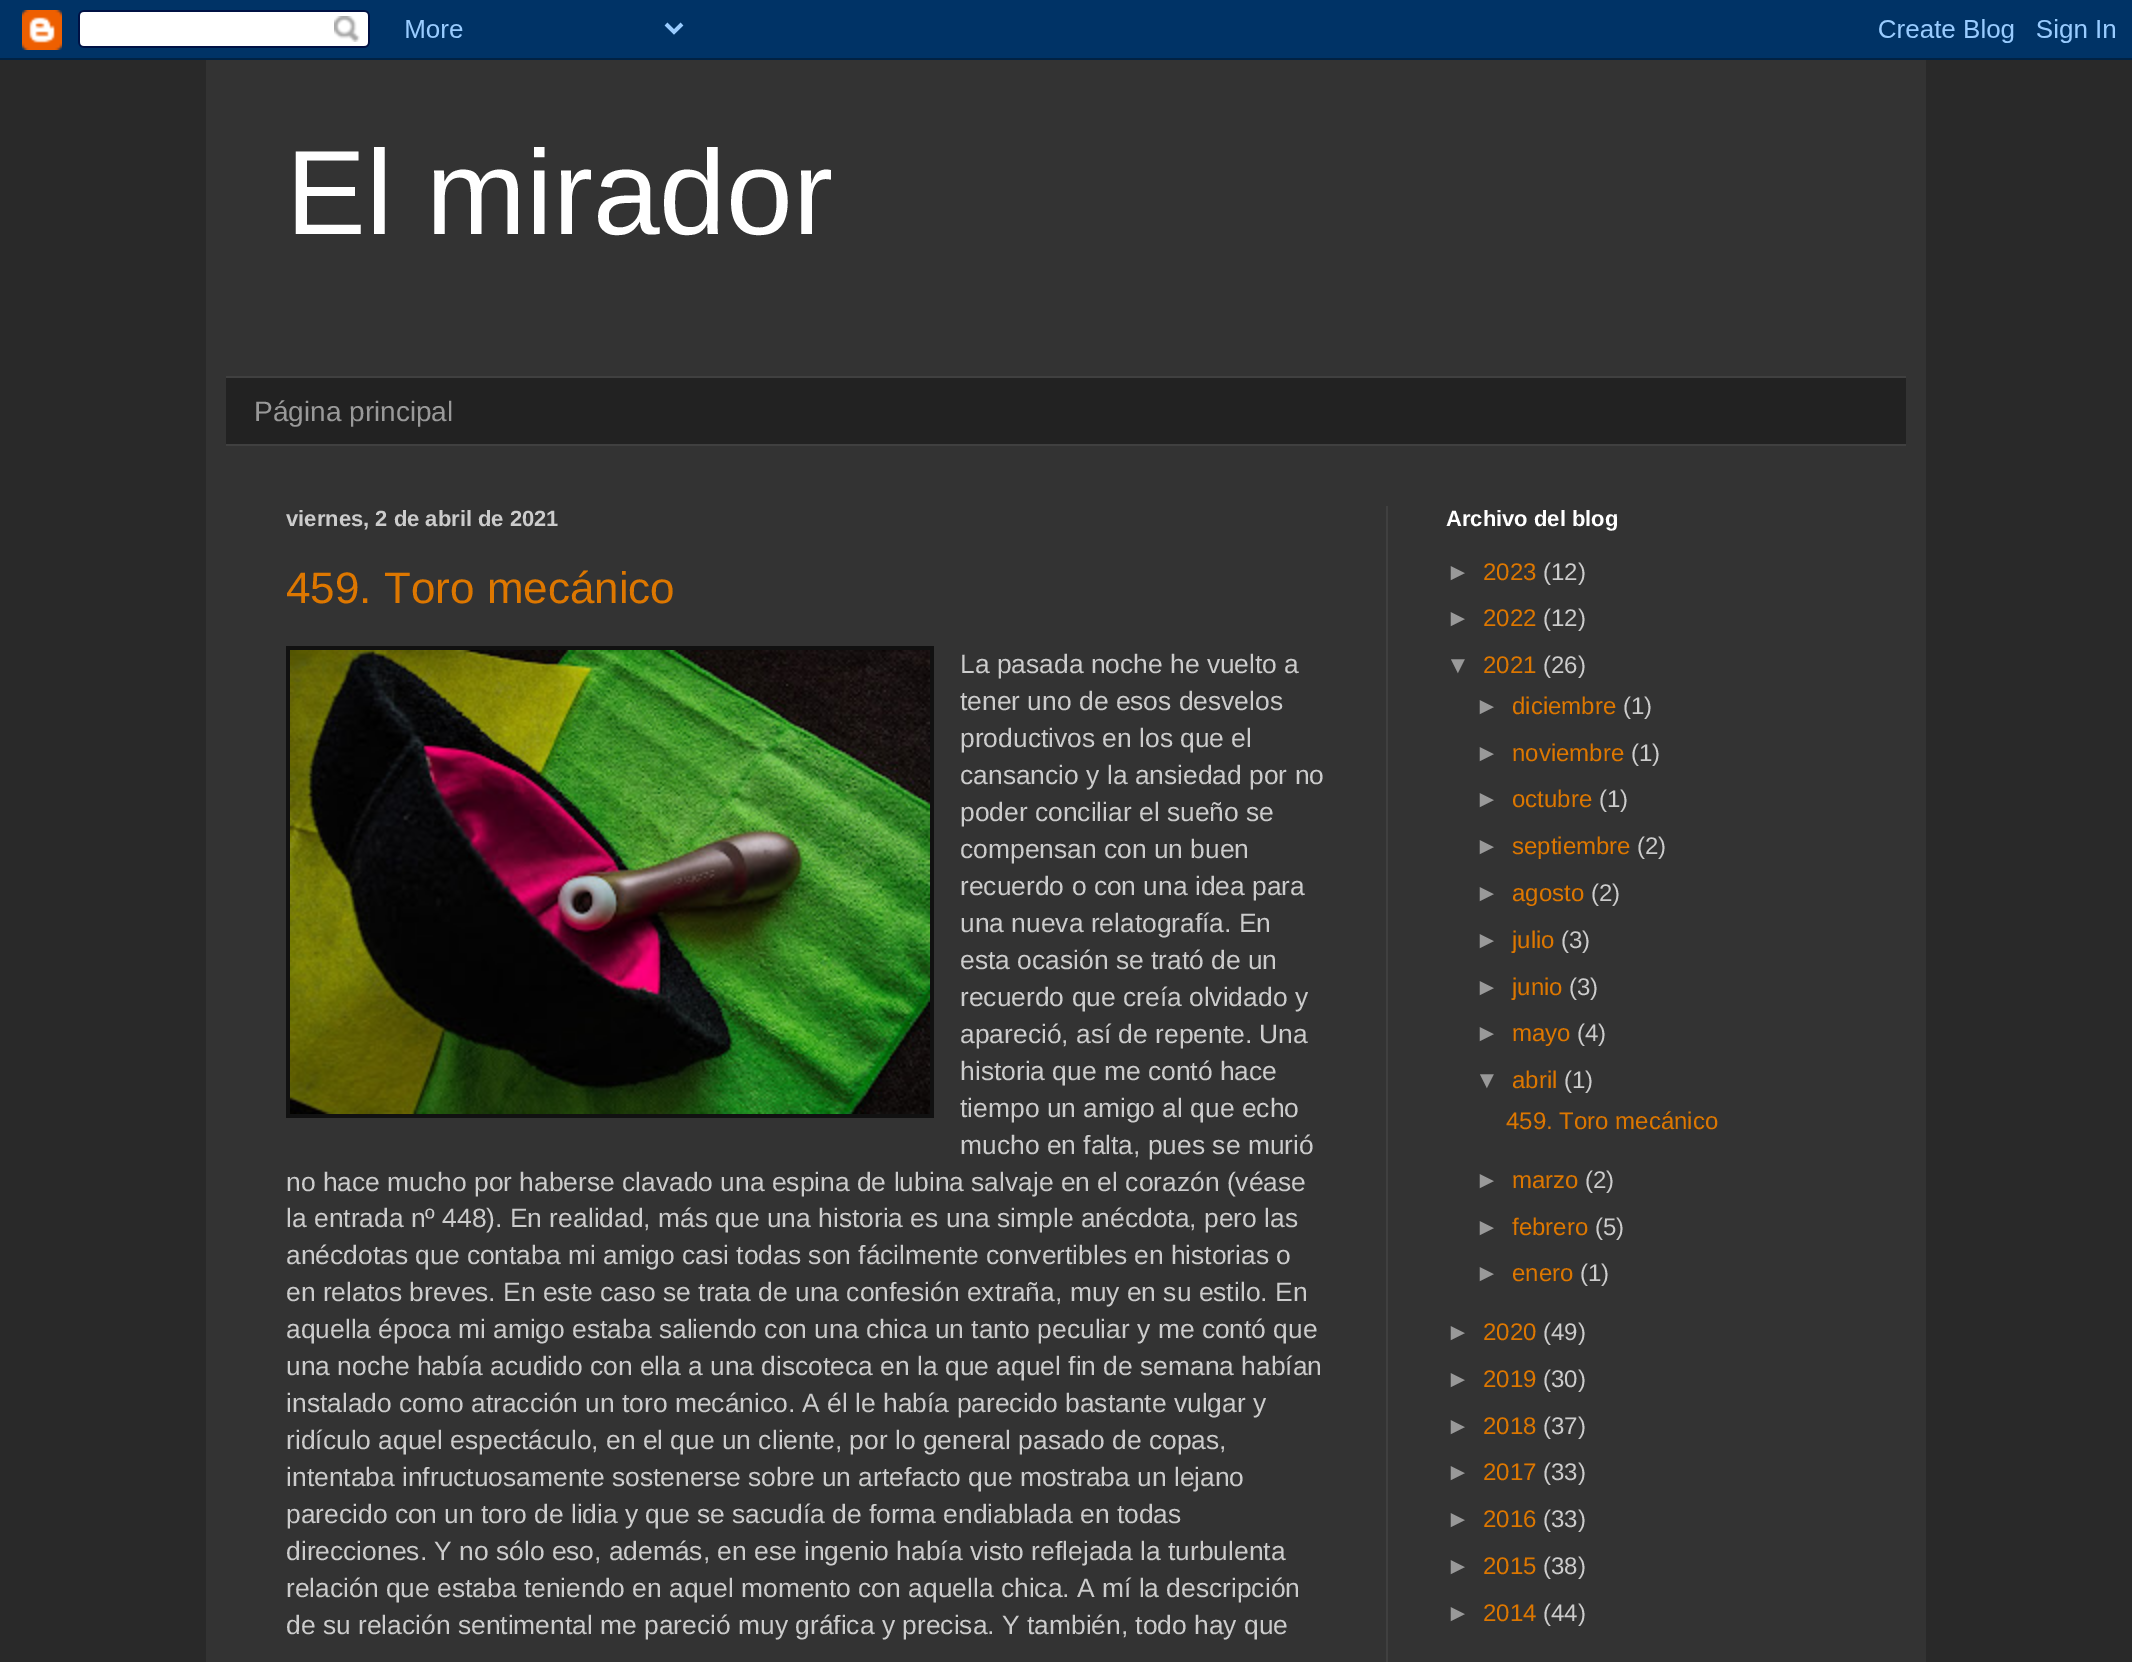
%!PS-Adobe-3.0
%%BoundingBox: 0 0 2132 1662
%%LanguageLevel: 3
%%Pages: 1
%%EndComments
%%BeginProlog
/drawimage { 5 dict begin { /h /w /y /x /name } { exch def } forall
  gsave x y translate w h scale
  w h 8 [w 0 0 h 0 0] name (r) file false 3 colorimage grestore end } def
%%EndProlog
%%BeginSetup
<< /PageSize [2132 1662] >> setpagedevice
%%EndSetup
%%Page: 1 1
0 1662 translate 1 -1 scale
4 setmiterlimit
0.161 setgray
0 0 2132 1662 rectfill
(images/1.raw) 0 0 2132 60 drawimage
0.2 setgray
206 60 1720 1602 rectfill
0.133 setgray
226 378 1680 66 rectfill
0.251 setgray
226 376 1680 2 rectfill
226 444 1680 2 rectfill
1386 506 2 1156 rectfill
0.067 setgray
286 646 648 472 rectfill
(images/2.raw) 290 650 640 464 drawimage
/LiberationSans-Regular [120 0 0 -120 0 0] selectfont
1 setgray
286 234 moveto (El mirador) show
/LiberationSans-Regular [28 0 0 -28 0 0] selectfont
0.6 setgray
254 421 moveto (Página principal) show
/LiberationSans-Bold [22 0 0 -22 0 0] selectfont
0.8 setgray
286 526 moveto (viernes, 2 de abril de 2021) show
/LiberationSans-Regular [44 0 0 -44 0 0] selectfont
0.867 0.467 0 setrgbcolor
286 603 moveto (459. Toro mecánico) show
/LiberationSans-Regular [26.4 0 0 -26.4 0 0] selectfont
0.8 setgray
960 673 moveto (La pasada noche he vuelto a) show
960 710 moveto (tener uno de esos desvelos) show
960 747 moveto (productivos en los que el) show
960 784 moveto (cansancio y la ansiedad por no) show
960 821 moveto (poder conciliar el sueño se) show
960 858 moveto (compensan con un buen) show
960 895 moveto (recuerdo o con una idea para) show
960 932 moveto (una nueva relatografía. En) show
960 969 moveto (esta ocasión se trató de un) show
960 1006 moveto (recuerdo que creía olvidado y) show
960 1043 moveto (apareció, así de repente. Una) show
960 1080 moveto (historia que me contó hace) show
960 1117 moveto (tiempo un amigo al que echo) show
960 1154 moveto (mucho en falta, pues se murió) show
286 1191 moveto (no hace mucho por haberse clavado una espina de lubina salvaje en el corazón \(véase) show
286 1227 moveto (la entrada nº 448\). En realidad, más que una historia es una simple anécdota, pero las) show
286 1264 moveto (anécdotas que contaba mi amigo casi todas son fácilmente convertibles en historias o) show
286 1301 moveto (en relatos breves. En este caso se trata de una confesión extraña, muy en su estilo. En) show
286 1338 moveto (aquella época mi amigo estaba saliendo con una chica un tanto peculiar y me contó que) show
286 1375 moveto (una noche había acudido con ella a una discoteca en la que aquel fin de semana habían) show
286 1412 moveto (instalado como atracción un toro mecánico. A él le había parecido bastante vulgar y) show
286 1449 moveto (ridículo aquel espectáculo, en el que un cliente, por lo general pasado de copas,) show
286 1486 moveto (intentaba infructuosamente sostenerse sobre un artefacto que mostraba un lejano) show
286 1523 moveto (parecido con un toro de lidia y que se sacudía de forma endiablada en todas) show
286 1560 moveto (direcciones. Y no sólo eso, además, en ese ingenio había visto reflejada la turbulenta) show
286 1597 moveto (relación que estaba teniendo en aquel momento con aquella chica. A mí la descripción) show
286 1634 moveto (de su relación sentimental me pareció muy gráfica y precisa. Y también, todo hay que) show
/LiberationSans-Bold [22 0 0 -22 0 0] selectfont
1 setgray
1446 526 moveto (Archivo del blog) show
/LiberationSans-Regular [24 0 0 -24 0 0] selectfont
0.6 setgray
1446 580 moveto (►) show
0.867 0.467 0 setrgbcolor
1483 580 moveto (2023) show
0.8 setgray
1543 580 moveto (\(12\)) show
0.6 setgray
1446 626 moveto (►) show
0.867 0.467 0 setrgbcolor
1483 626 moveto (2022) show
0.8 setgray
1543 626 moveto (\(12\)) show
0.6 setgray
1446 673 moveto (▼) show
0.867 0.467 0 setrgbcolor
1483 673 moveto (2021) show
0.8 setgray
1543 673 moveto (\(26\)) show
0.6 setgray
1475 714 moveto (►) show
0.867 0.467 0 setrgbcolor
1512 714 moveto (diciembre) show
0.8 setgray
1623 714 moveto (\(1\)) show
0.6 setgray
1475 761 moveto (►) show
0.867 0.467 0 setrgbcolor
1512 761 moveto (noviembre) show
0.8 setgray
1631 761 moveto (\(1\)) show
0.6 setgray
1475 807 moveto (►) show
0.867 0.467 0 setrgbcolor
1512 807 moveto (octubre) show
0.8 setgray
1599 807 moveto (\(1\)) show
0.6 setgray
1475 854 moveto (►) show
0.867 0.467 0 setrgbcolor
1512 854 moveto (septiembre) show
0.8 setgray
1637 854 moveto (\(2\)) show
0.6 setgray
1475 901 moveto (►) show
0.867 0.467 0 setrgbcolor
1512 901 moveto (agosto) show
0.8 setgray
1591 901 moveto (\(2\)) show
0.6 setgray
1475 948 moveto (►) show
0.867 0.467 0 setrgbcolor
1512 948 moveto (julio) show
0.8 setgray
1561 948 moveto (\(3\)) show
0.6 setgray
1475 995 moveto (►) show
0.867 0.467 0 setrgbcolor
1512 995 moveto (junio) show
0.8 setgray
1569 995 moveto (\(3\)) show
0.6 setgray
1475 1041 moveto (►) show
0.867 0.467 0 setrgbcolor
1512 1041 moveto (mayo) show
0.8 setgray
1577 1041 moveto (\(4\)) show
0.6 setgray
1475 1088 moveto (▼) show
0.867 0.467 0 setrgbcolor
1512 1088 moveto (abril) show
0.8 setgray
1564 1088 moveto (\(1\)) show
0.867 0.467 0 setrgbcolor
1506 1129 moveto (459. Toro mecánico) show
0.6 setgray
1475 1188 moveto (►) show
0.867 0.467 0 setrgbcolor
1512 1188 moveto (marzo) show
0.8 setgray
1585 1188 moveto (\(2\)) show
0.6 setgray
1475 1235 moveto (►) show
0.867 0.467 0 setrgbcolor
1512 1235 moveto (febrero) show
0.8 setgray
1595 1235 moveto (\(5\)) show
0.6 setgray
1475 1281 moveto (►) show
0.867 0.467 0 setrgbcolor
1512 1281 moveto (enero) show
0.8 setgray
1580 1281 moveto (\(1\)) show
0.6 setgray
1446 1340 moveto (►) show
0.867 0.467 0 setrgbcolor
1483 1340 moveto (2020) show
0.8 setgray
1543 1340 moveto (\(49\)) show
0.6 setgray
1446 1387 moveto (►) show
0.867 0.467 0 setrgbcolor
1483 1387 moveto (2019) show
0.8 setgray
1543 1387 moveto (\(30\)) show
0.6 setgray
1446 1434 moveto (►) show
0.867 0.467 0 setrgbcolor
1483 1434 moveto (2018) show
0.8 setgray
1543 1434 moveto (\(37\)) show
0.6 setgray
1446 1480 moveto (►) show
0.867 0.467 0 setrgbcolor
1483 1480 moveto (2017) show
0.8 setgray
1543 1480 moveto (\(33\)) show
0.6 setgray
1446 1527 moveto (►) show
0.867 0.467 0 setrgbcolor
1483 1527 moveto (2016) show
0.8 setgray
1543 1527 moveto (\(33\)) show
0.6 setgray
1446 1574 moveto (►) show
0.867 0.467 0 setrgbcolor
1483 1574 moveto (2015) show
0.8 setgray
1543 1574 moveto (\(38\)) show
0.6 setgray
1446 1621 moveto (►) show
0.867 0.467 0 setrgbcolor
1483 1621 moveto (2014) show
0.8 setgray
1543 1621 moveto (\(44\)) show
showpage
%%EOF
